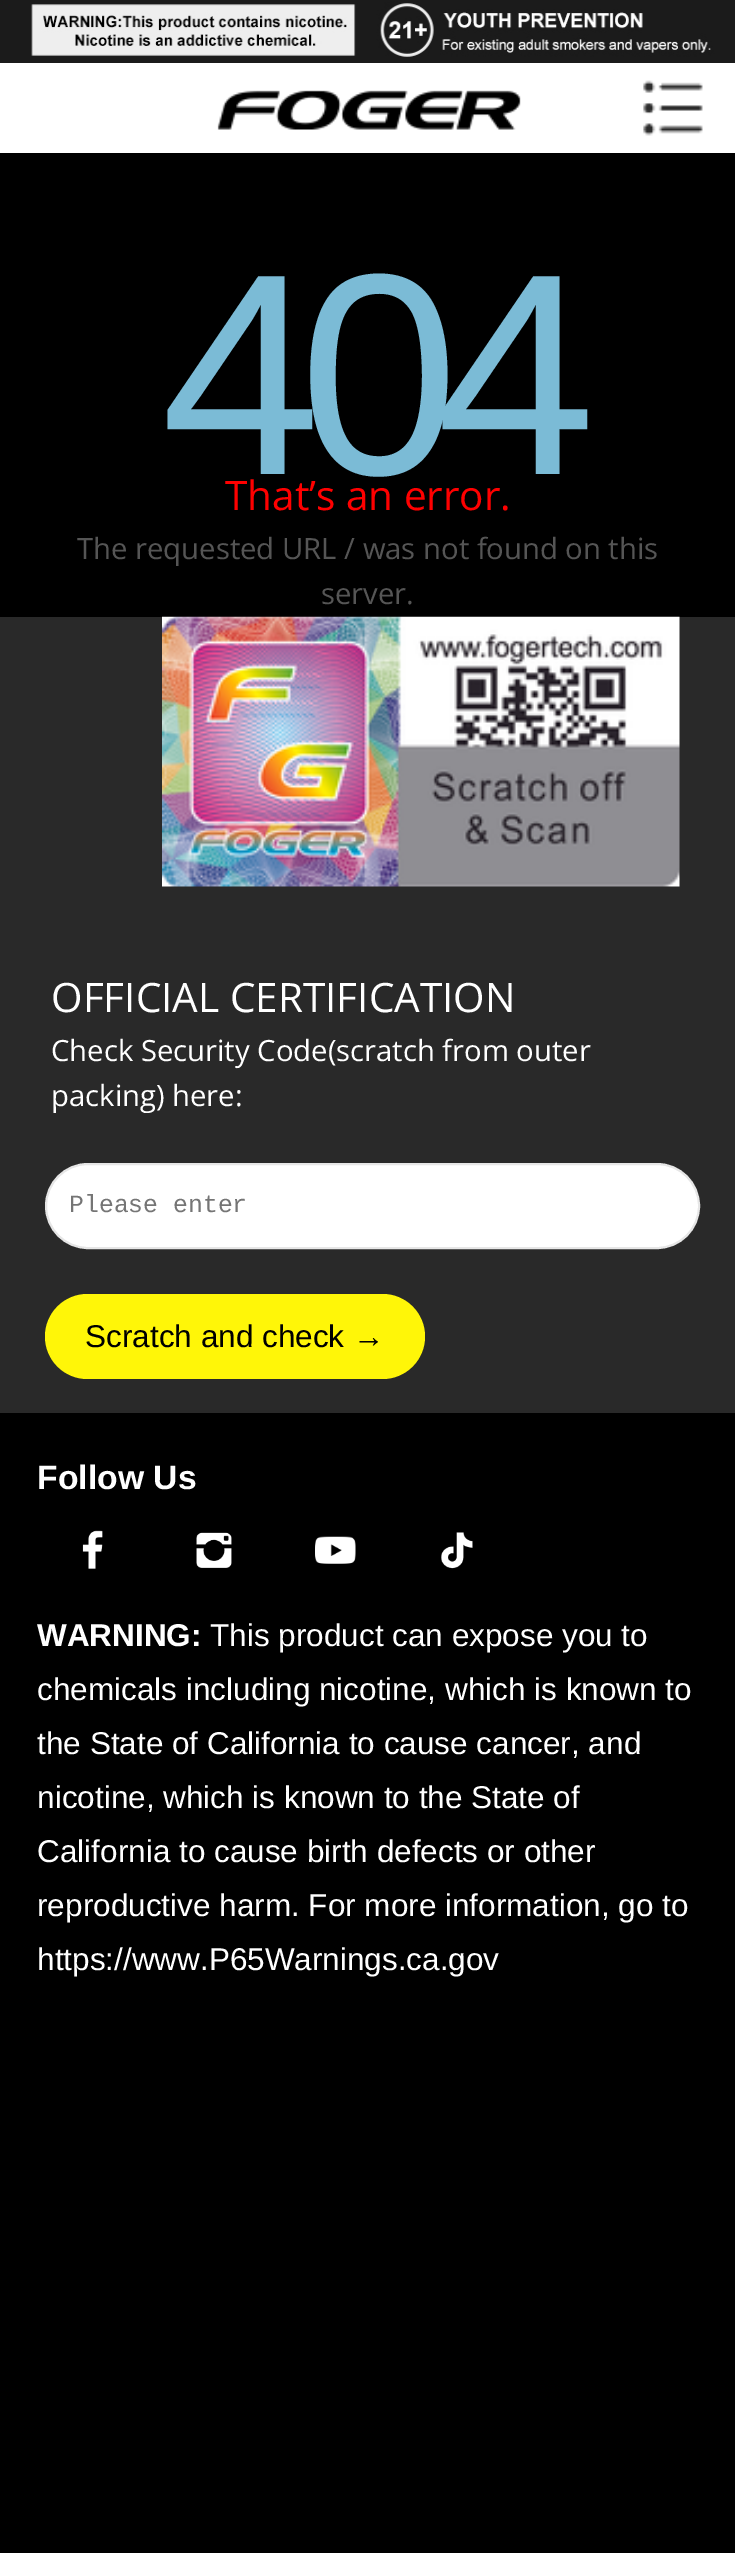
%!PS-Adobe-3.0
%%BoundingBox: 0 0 735 2553
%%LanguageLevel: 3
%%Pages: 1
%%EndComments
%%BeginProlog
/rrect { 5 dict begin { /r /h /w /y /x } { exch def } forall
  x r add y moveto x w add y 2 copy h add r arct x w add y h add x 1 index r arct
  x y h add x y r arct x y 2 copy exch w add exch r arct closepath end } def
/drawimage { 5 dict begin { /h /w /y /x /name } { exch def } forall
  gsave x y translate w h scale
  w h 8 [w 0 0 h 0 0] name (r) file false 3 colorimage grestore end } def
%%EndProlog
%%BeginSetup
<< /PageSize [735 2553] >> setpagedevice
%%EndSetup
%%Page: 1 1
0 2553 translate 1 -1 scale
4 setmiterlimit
0 setgray
0 0 735 2553 rectfill
(images/1.raw) 0 0 735 63 drawimage
1 setgray
0 63 735 90 rectfill
(images/2.raw) 217 90 304 40 drawimage
(images/3.raw) 643 80 60 56 drawimage
0.161 setgray
0 617 735 796 rectfill
(images/4.raw) 162 616 518 271 drawimage
1 setgray
46 1164 653 84 42 rrect gsave fill grestore
0.902 setgray
2 setlinewidth
stroke
1 0.965 0.031 setrgbcolor
45 1294 380 85 42.5 rrect fill
(images/5.raw) 82 1530 21 39 drawimage
(images/6.raw) 196 1532 36 36 drawimage
(images/7.raw) 315 1536 41 28 drawimage
(images/8.raw) 441 1532 32 37 drawimage
/LiberationSans-Regular [288 0 0 -288 0 0] selectfont
0.482 0.733 0.839 setrgbcolor
161 474 moveto -22.5 0 (404) ashow
/OpenSans-Regular [40.5 0 0 -40.5 0 0] selectfont
1 0 0 setrgbcolor
225 510 moveto (That’s an error.) show
/OpenSans-Regular [29.25 0 0 -29.25 0 0] selectfont
0.333 setgray
77 559 moveto (The requested URL / was not found on this) show
321 604 moveto (server.) show
/OpenSans-Regular [40.5 0 0 -40.5 0 0] selectfont
1 setgray
51 1012 moveto (OFFICIAL CERTIFICATION) show
/OpenSans-Regular [29.25 0 0 -29.25 0 0] selectfont
51 1061 moveto (Check Security Code\(scratch from outer) show
51 1106 moveto (packing\) here:) show
/LiberationMono-Regular [24.75 0 0 -24.75 0 0] selectfont
0.459 setgray
69 1212 moveto (Please enter) show
/LiberationSans-Regular [31.5 0 0 -31.5 0 0] selectfont
0 setgray
85 1347 moveto (Scratch and check →) show
/LiberationSans-Bold [33.75 0 0 -33.75 0 0] selectfont
1 setgray
37 1489 moveto (Follow Us) show
/LiberationSans-Bold [31.5 0 0 -31.5 0 0] selectfont
37 1646 moveto (WARNING:) show
/LiberationSans-Regular [31.5 0 0 -31.5 0 0] selectfont
210 1646 moveto (This product can expose you to) show
37 1700 moveto (chemicals including nicotine, which is known to) show
37 1754 moveto (the State of California to cause cancer, and) show
37 1808 moveto (nicotine, which is known to the State of) show
37 1862 moveto (California to cause birth defects or other) show
37 1916 moveto (reproductive harm. For more information, go to) show
37 1970 moveto (https://www.P65Warnings.ca.gov) show
showpage
%%EOF
